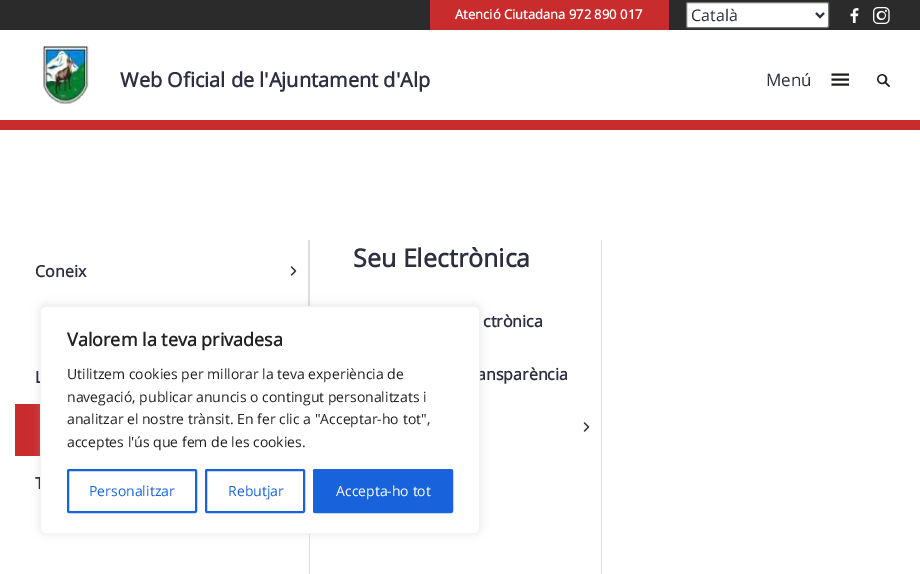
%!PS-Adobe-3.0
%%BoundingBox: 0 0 920 574
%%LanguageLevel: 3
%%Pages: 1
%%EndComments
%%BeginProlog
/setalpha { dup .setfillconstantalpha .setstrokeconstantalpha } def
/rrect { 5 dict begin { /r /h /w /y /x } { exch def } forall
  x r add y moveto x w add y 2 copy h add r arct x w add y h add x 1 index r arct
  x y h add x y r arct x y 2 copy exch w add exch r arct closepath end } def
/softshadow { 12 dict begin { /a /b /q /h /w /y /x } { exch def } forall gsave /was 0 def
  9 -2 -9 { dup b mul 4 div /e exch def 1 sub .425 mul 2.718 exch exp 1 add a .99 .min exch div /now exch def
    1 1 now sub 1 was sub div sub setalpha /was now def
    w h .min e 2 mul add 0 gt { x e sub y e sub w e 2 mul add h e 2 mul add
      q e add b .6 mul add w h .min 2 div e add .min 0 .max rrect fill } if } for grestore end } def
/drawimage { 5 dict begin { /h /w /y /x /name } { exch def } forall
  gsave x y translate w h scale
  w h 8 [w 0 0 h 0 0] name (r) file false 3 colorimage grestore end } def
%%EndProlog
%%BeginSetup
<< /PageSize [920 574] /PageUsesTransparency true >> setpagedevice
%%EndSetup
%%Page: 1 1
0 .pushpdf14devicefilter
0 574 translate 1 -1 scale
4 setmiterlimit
1 setgray
0 0 920 574 rectfill
0.788 0.173 0.173 setrgbcolor
0 120 920 10 rectfill
0.169 setgray
0 0 920 30 rectfill
0.788 0.173 0.173 setrgbcolor
430 0 239 30 rectfill
1 setgray
686.5 2.5 142 25 1.5 rrect gsave fill grestore
0.463 setgray
stroke
0.176 0.18 0.251 setrgbcolor
2 setlinewidth
newpath 816 13 moveto 820 17 lineto 824 13 lineto stroke
(images/1.raw) 850 8 9 15 drawimage
(images/2.raw) 873 7 17 17 drawimage
(images/3.raw) 42 46 47 58 drawimage
0.114 0.114 0.106 setrgbcolor
newpath 831.5 74.5 moveto 849 74.5 lineto 831.5 79.5 moveto 849 79.5 lineto 831.5 84.5 moveto 849 84.5 lineto stroke
(images/4.raw) 877 74 13 13 drawimage
0.867 setgray
308 240 1 66 rectfill
(images/5.raw) 290 266 7 10 drawimage
601 240 1 334 rectfill
309 240 1 334 rectfill
(images/5.raw) 583 422 7 10 drawimage
0.788 0.173 0.173 setrgbcolor
15 404 25 52 rectfill
0.675 0.671 0.671 setrgbcolor
40 305 440 228 6 5 0.3 softshadow
/OpenSans-Bold [13 0 0 -13 0 0] selectfont
1 setgray
455 19 moveto (Atenció Ciutadana 972 890 017) show
/OpenSans-Regular [16 0 0 -16 0 0] selectfont
0.176 0.18 0.251 setrgbcolor
691 21 moveto (Català) show
/OpenSans-Bold [20 0 0 -20 0 0] selectfont
120 87 moveto (Web Oficial de l'Ajuntament d'Alp) show
/OpenSans-Regular [17 0 0 -17 0 0] selectfont
766 86 moveto (Menú) show
/OpenSans-Bold [16 0 0 -16 0 0] selectfont
35 277 moveto (Coneix) show
/OpenSans-Bold [25 0 0 -25 0 0] selectfont
353 267 moveto (Seu Electrònica) show
/OpenSans-Bold [16 0 0 -16 0 0] selectfont
483 327 moveto (ctrònica) show
477 380 moveto (ansparència) show
35 383 moveto (L) show
35 489 moveto (T) show
1 setgray
40.5 306.5 439 227 5.5 rrect gsave fill grestore
0.957 setgray
1 setlinewidth
stroke
/OpenSans-Bold [18 0 0 -18 0 0] selectfont
0.129 setgray
67 346 moveto (Valorem la teva privadesa) show
/OpenSans-Regular [14 0 0 -14 0 0] selectfont
67 379 moveto (Utilitzem cookies per millorar la teva experiència de) show
67 402 moveto (navegació, publicar anuncis o contingut personalitzats i) show
67 424 moveto (analitzar el nostre trànsit. En fer clic a "Acceptar-ho tot",) show
67 447 moveto (acceptes l'ús que fem de les cookies.) show
0.094 0.388 0.863 setrgbcolor
2 setlinewidth
68 470 128 42 1 rrect stroke
89 496 moveto (Personalitzar) show
206 470 98 42 1 rrect stroke
228 496 moveto (Rebutjar) show
314 470 138 42 1 rrect gsave fill grestore
stroke
1 setgray
336 496 moveto (Accepta-ho tot) show
.poppdf14devicefilter showpage
%%EOF
